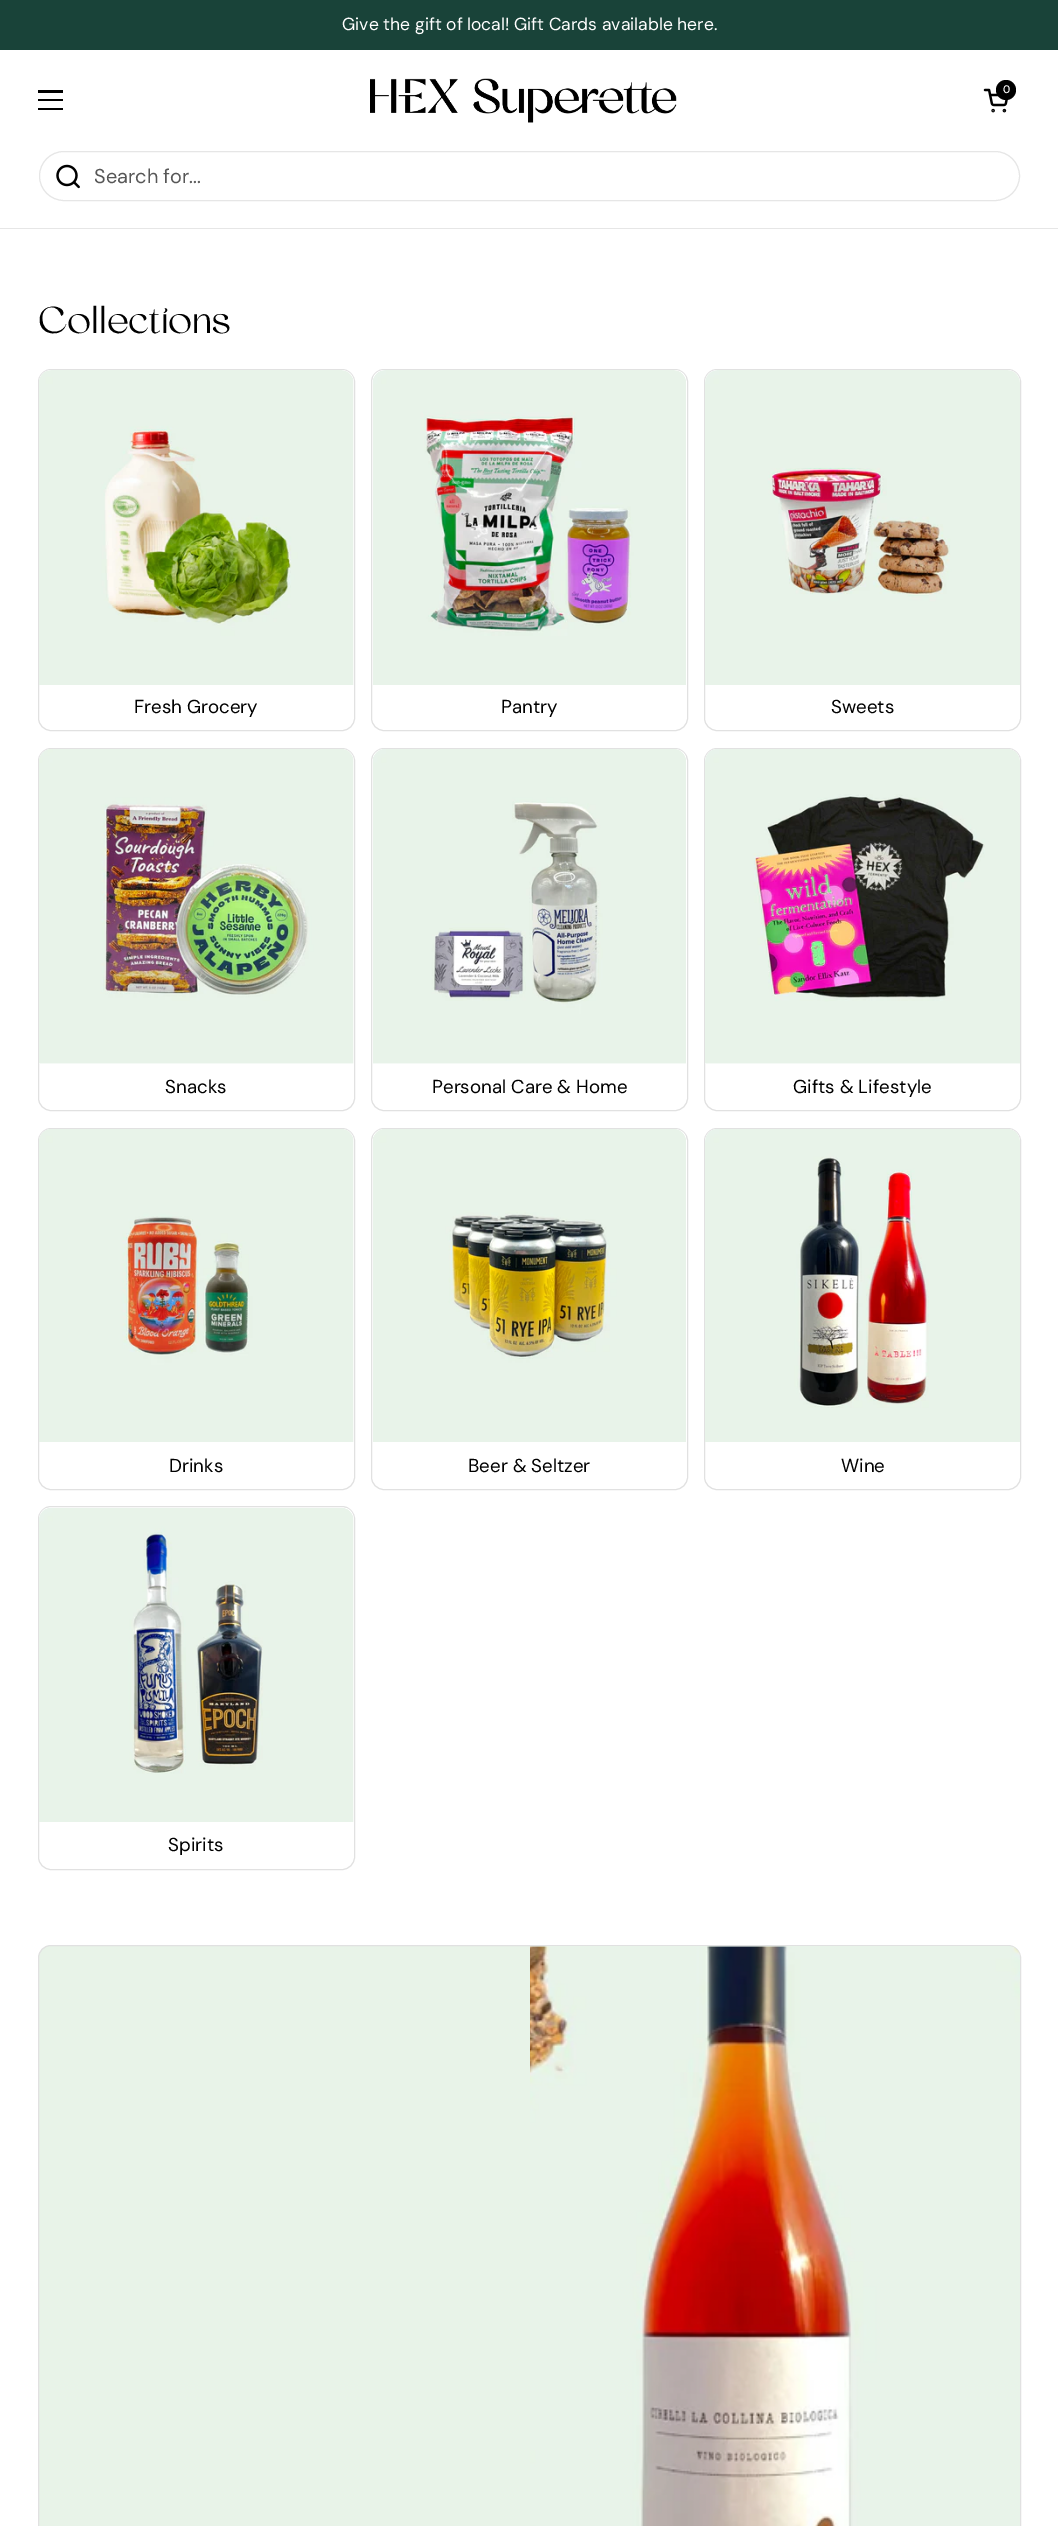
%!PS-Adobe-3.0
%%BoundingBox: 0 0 1058 2526
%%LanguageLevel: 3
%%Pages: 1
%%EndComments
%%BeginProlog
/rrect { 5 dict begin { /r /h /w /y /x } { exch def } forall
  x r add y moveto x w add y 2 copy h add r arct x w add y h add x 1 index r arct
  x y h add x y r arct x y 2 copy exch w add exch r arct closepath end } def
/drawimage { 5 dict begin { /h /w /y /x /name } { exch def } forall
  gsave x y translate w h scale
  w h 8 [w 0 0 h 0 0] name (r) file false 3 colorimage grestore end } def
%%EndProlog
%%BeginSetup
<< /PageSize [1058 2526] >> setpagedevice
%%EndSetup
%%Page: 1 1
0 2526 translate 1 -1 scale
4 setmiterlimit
1 setgray
0 0 1058 2526 rectfill
0.098 0.263 0.224 setrgbcolor
0 0 1058 50 rectfill
0 setgray
38 90 25 3 rectfill
38 99 25 2 rectfill
38 108 25 2 rectfill
(images/1.raw) 370 78 307 45 drawimage
(images/2.raw) 983 88 25 25 drawimage
newpath 1006 90 10 0 360 arc closepath fill
0.902 setgray
0 228 1058 1 rectfill
39.5 151.5 980 49 24.5 rrect stroke
(images/3.raw) 56 164 24 25 drawimage
0.882 setgray
38.5 369.5 316 361 12.5 rrect stroke
(images/4.raw) 39 370 315 315 drawimage
371.5 369.5 316 361 12.5 rrect stroke
(images/5.raw) 373 370 313 315 drawimage
704.5 369.5 316 361 12.5 rrect stroke
(images/6.raw) 705 370 315 315 drawimage
38.5 748.5 316 362 12.5 rrect stroke
(images/7.raw) 39 749 315 315 drawimage
371.5 748.5 316 362 12.5 rrect stroke
(images/8.raw) 373 749 313 315 drawimage
704.5 748.5 316 362 12.5 rrect stroke
(images/9.raw) 705 749 315 315 drawimage
38.5 1128.5 316 361 12.5 rrect stroke
(images/10.raw) 39 1129 315 313 drawimage
371.5 1128.5 316 361 12.5 rrect stroke
(images/11.raw) 373 1129 313 313 drawimage
704.5 1128.5 316 361 12.5 rrect stroke
(images/12.raw) 705 1129 315 313 drawimage
38.5 1506.5 316 363 12.5 rrect stroke
(images/13.raw) 39 1508 315 314 drawimage
0.91 0.953 0.91 setrgbcolor
38.5 1945.5 982 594 12.5 rrect gsave fill grestore
0.882 setgray
stroke
(images/14.raw) 530 1946 490 580 drawimage
/DMSans-Regular [17.5 0 0 -17.5 0 0] selectfont
1 setgray
342 30 moveto (Give the gift of local! Gift Cards available here.) show
/DMSans-Medium [11 0 0 -11 0 0] selectfont
1003 93 moveto (0) show
/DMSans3-Regular [20 0 0 -20 0 0] selectfont
0.341 setgray
94 183 moveto (Search for...) show
/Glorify-Light [37.5 0 0 -37.5 0 0] selectfont
0 setgray
38 333 moveto (Collections) show
/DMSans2-Regular [18.75 0 0 -18.75 0 0] selectfont
134 713 moveto (Fresh Grocery) show
501 713 moveto (Pantry) show
831 713 moveto (Sweets) show
165 1093 moveto (Snacks) show
432 1093 moveto (Personal Care & Home) show
793 1093 moveto (Gifts & Lifestyle) show
169 1472 moveto (Drinks) show
468 1472 moveto (Beer & Seltzer) show
841 1472 moveto (Wine) show
168 1851 moveto (Spirits) show
showpage
%%EOF
